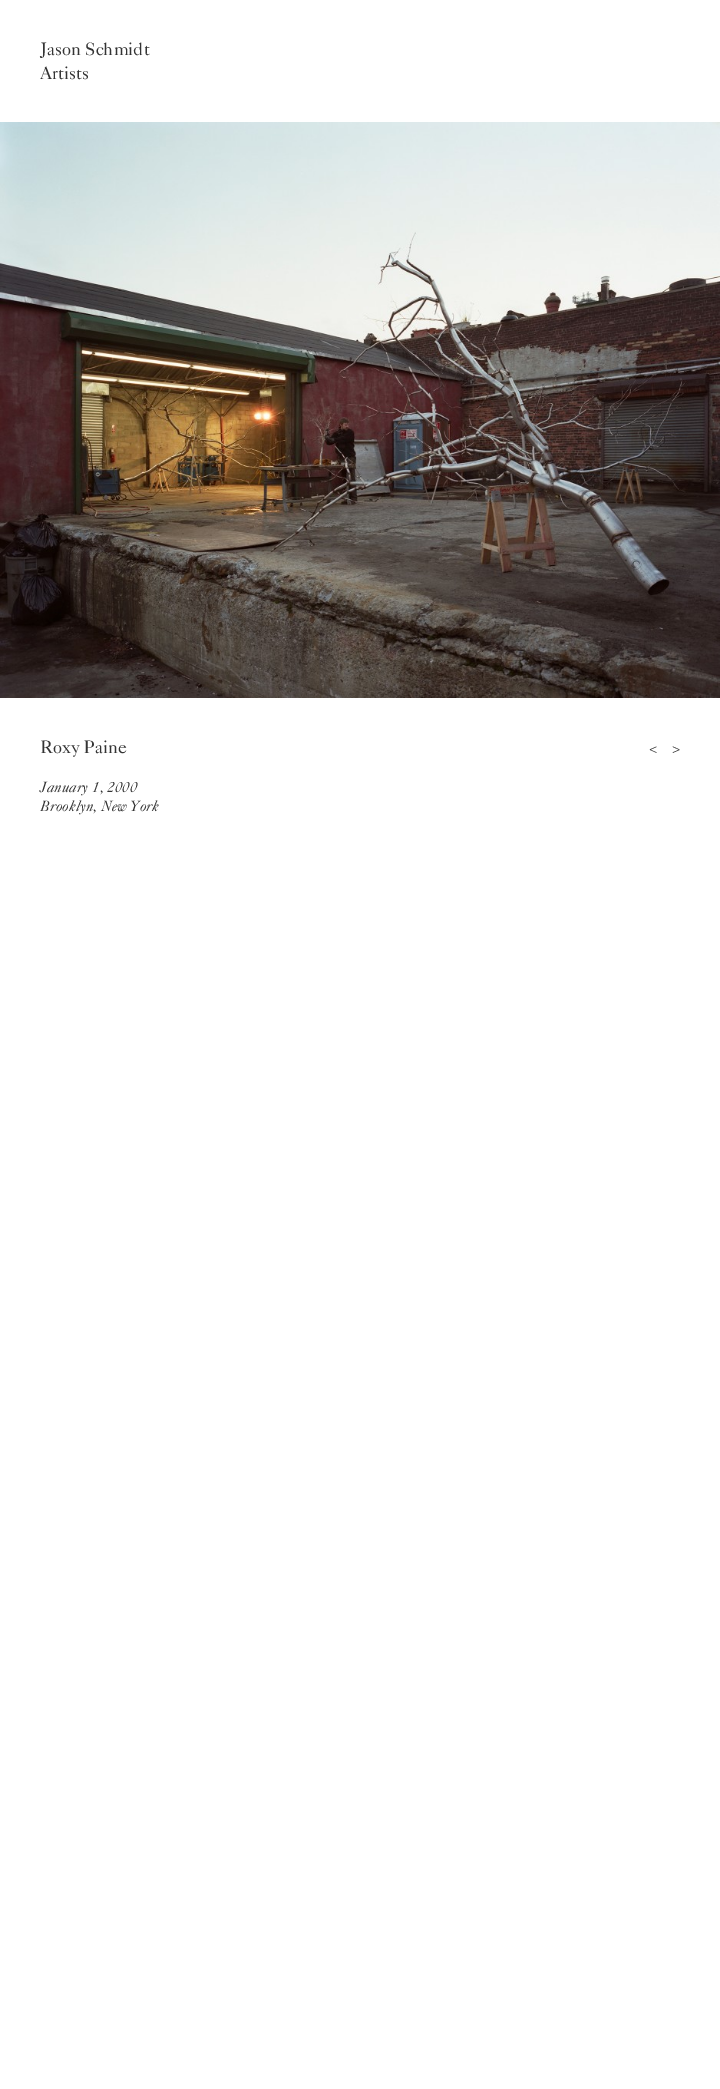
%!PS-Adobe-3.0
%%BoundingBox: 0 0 720 2089
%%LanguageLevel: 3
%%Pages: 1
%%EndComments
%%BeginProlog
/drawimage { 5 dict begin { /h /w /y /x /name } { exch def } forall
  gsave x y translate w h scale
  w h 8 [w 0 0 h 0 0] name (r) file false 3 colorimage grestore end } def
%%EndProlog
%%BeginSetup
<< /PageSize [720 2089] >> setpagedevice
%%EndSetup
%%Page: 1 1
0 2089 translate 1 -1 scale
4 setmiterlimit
1 setgray
0 0 720 2089 rectfill
(images/1.raw) 0 122 720 576 drawimage
/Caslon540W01-Regular [18 0 0 -18 0 0] selectfont
0.204 setgray
40 55 moveto (Jason Schmidt) show
40 79 moveto (Artists) show
40 753 moveto (Roxy Paine) show
/Caslon540W01-Italic [15 0 0 -15 0 0] selectfont
40 792 moveto (January 1, 2000) show
40 811 moveto (Brooklyn, New York) show
/Caslon540W01-Regular [15 0 0 -15 0 0] selectfont
649 753 moveto (<) show
672 753 moveto (>) show
showpage
%%EOF
